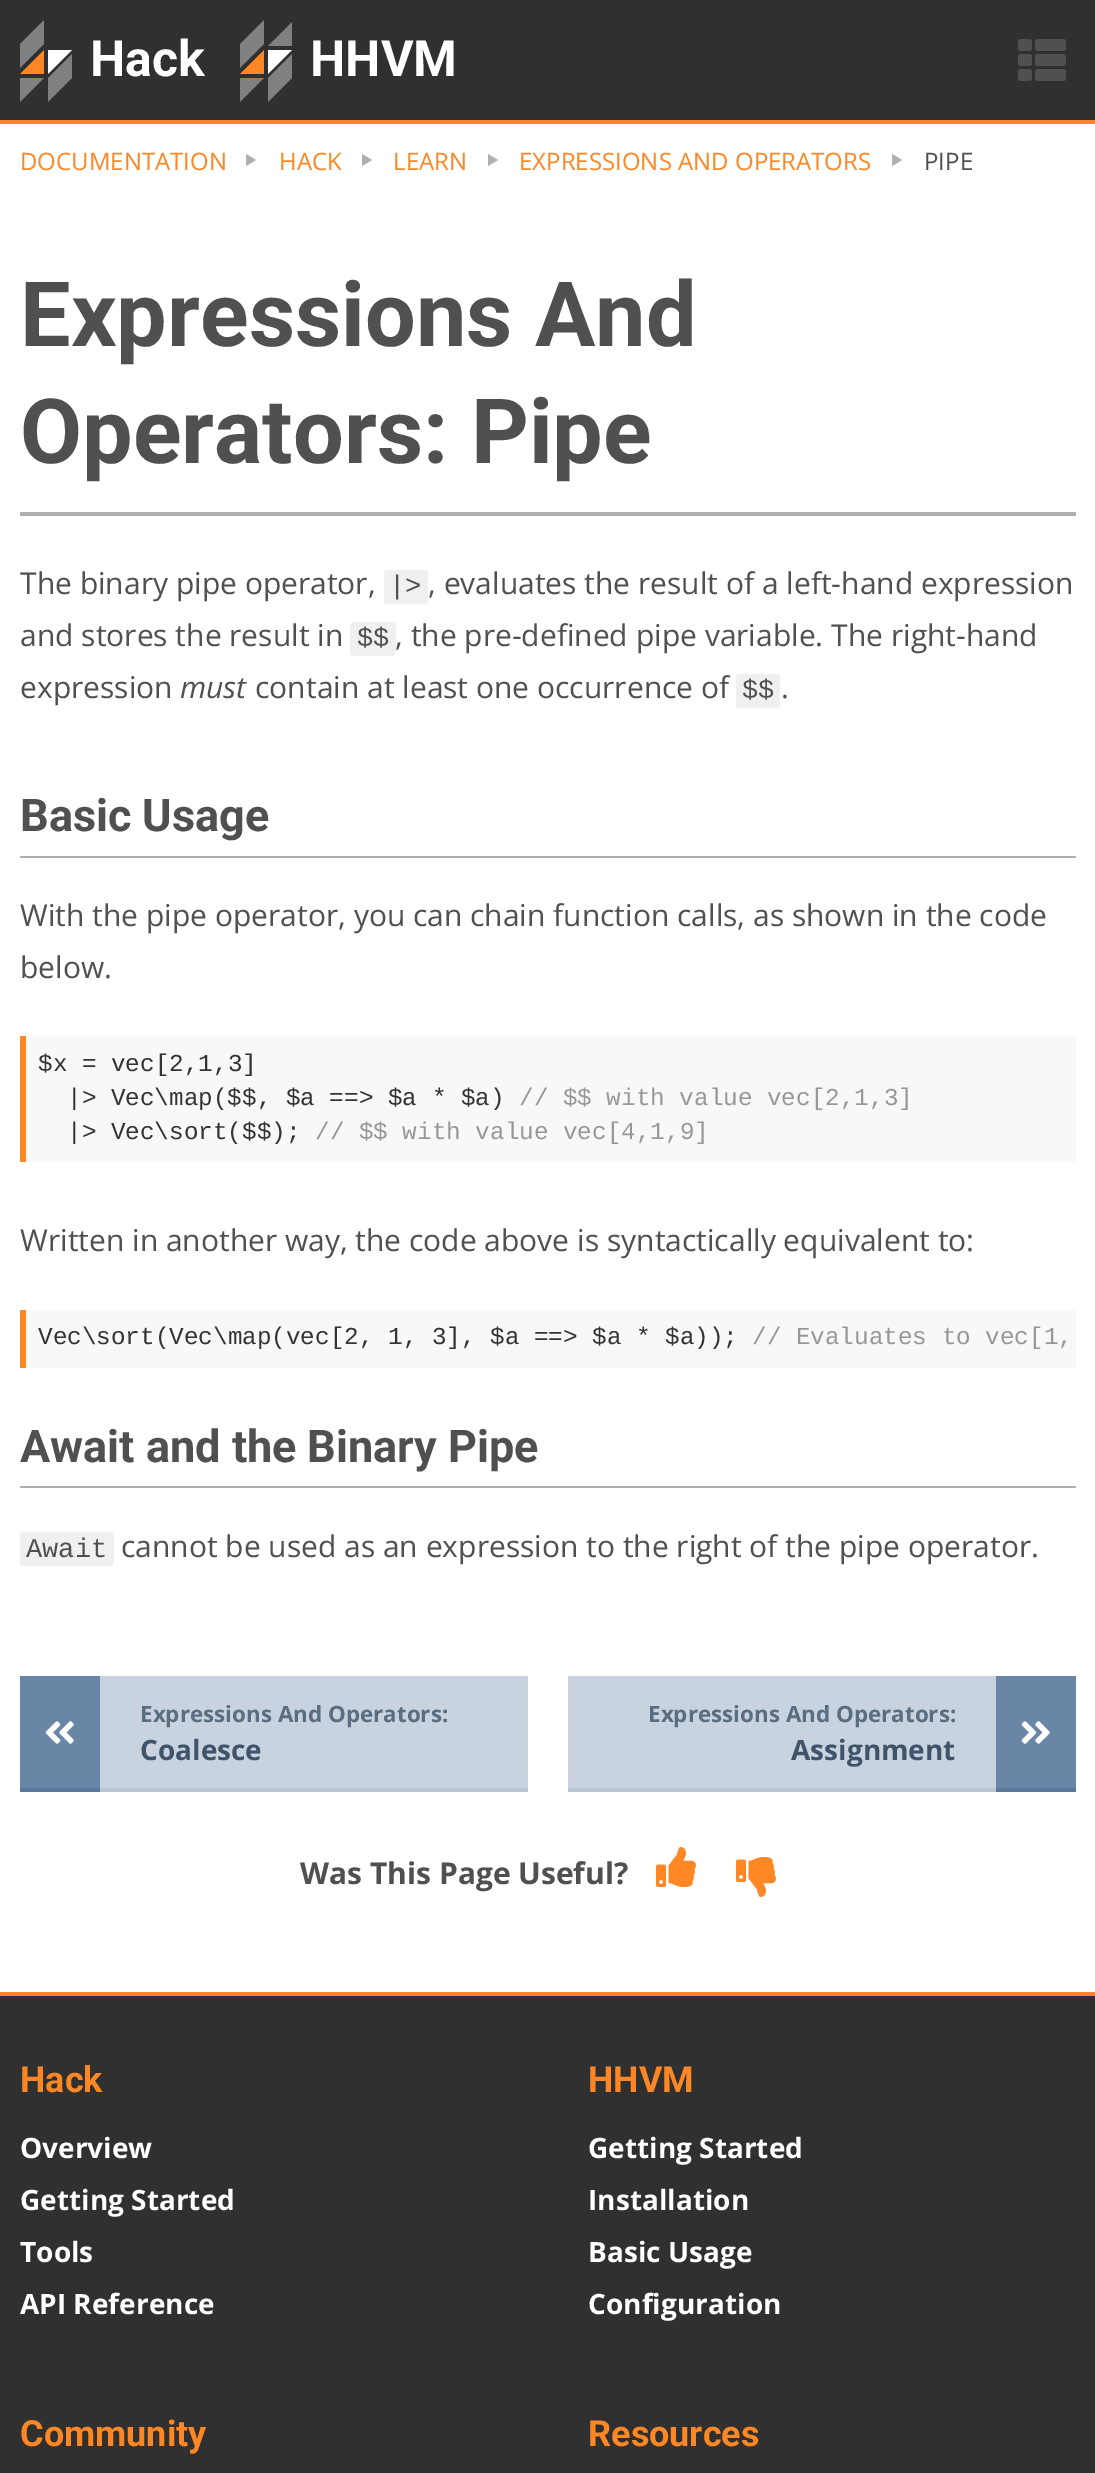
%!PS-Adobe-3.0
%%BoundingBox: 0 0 1095 2473
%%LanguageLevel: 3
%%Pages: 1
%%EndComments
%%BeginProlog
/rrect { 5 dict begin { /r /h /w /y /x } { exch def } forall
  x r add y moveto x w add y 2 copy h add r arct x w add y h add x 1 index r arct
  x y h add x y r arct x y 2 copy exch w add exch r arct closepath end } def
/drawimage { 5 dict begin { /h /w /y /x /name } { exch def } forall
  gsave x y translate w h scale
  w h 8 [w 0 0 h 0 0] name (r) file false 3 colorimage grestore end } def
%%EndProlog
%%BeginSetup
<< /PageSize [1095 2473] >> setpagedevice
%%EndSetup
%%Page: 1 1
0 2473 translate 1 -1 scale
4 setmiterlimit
0.188 setgray
0 0 1095 2473 rectfill
0.992 0.529 0.141 setrgbcolor
0 120 1095 4 rectfill
newpath 44 74 moveto 20 74 lineto 44 50 lineto closepath fill
1 setgray
newpath 48 50 moveto 72 50 lineto 48 74 lineto closepath fill
0.502 setgray
newpath 44 44 moveto 20 44 lineto 44 20 lineto closepath 20 44 moveto 44 44 lineto 20 68 lineto closepath 72 78 moveto 48 78 lineto 72 54 lineto closepath fill
newpath 20 78 moveto 44 78 lineto 20 102 lineto closepath fill
newpath 48 78 moveto 72 78 lineto 48 102 lineto closepath fill
newpath 292 46 moveto 268 46 lineto 292 22 lineto closepath fill
0.992 0.529 0.141 setrgbcolor
newpath 264 74 moveto 240 74 lineto 264 50 lineto closepath fill
1 setgray
newpath 268 50 moveto 292 50 lineto 268 74 lineto closepath fill
0.502 setgray
newpath 264 44 moveto 240 44 lineto 264 20 lineto closepath 240 44 moveto 264 44 lineto 240 68 lineto closepath 292 78 moveto 268 78 lineto 292 54 lineto closepath fill
newpath 240 78 moveto 264 78 lineto 240 102 lineto closepath fill
newpath 268 78 moveto 292 78 lineto 268 102 lineto closepath fill
(images/1.raw) 1018 39 48 42 drawimage
1 setgray
0 124 1095 1868 rectfill
0.69 setgray
newpath 246 166 moveto 246 154 lineto 256 160 lineto closepath fill
newpath 362 166 moveto 362 154 lineto 372 160 lineto closepath fill
newpath 488 166 moveto 488 154 lineto 498 160 lineto closepath fill
newpath 892 166 moveto 892 154 lineto 902 160 lineto closepath fill
20 512 1056 4 rectfill
0.941 setgray
384 570 44 34 4 rrect fill
350 622 46 34 4 rrect fill
736 674 44 34 4 rrect fill
0.69 setgray
20 856 1056 2 rectfill
0.992 0.529 0.141 setrgbcolor
20 1036 6 126 rectfill
0.973 setgray
26 1036 1050 126 rectfill
0.992 0.529 0.141 setrgbcolor
20 1310 6 58 rectfill
0.973 setgray
26 1310 1050 58 rectfill
0.69 setgray
20 1486 1056 2 rectfill
0.941 setgray
20 1532 94 34 4 rrect fill
0.788 0.827 0.875 setrgbcolor
100 1676 428 112 rectfill
0.412 0.525 0.651 setrgbcolor
20 1676 80 112 rectfill
0.357 0.475 0.604 setrgbcolor
20 1788 80 4 rectfill
(images/2.raw) 45 1721 29 23 drawimage
0.725 0.78 0.835 setrgbcolor
100 1788 428 4 rectfill
0.788 0.827 0.875 setrgbcolor
568 1676 428 112 rectfill
0.725 0.78 0.835 setrgbcolor
568 1788 428 4 rectfill
0.412 0.525 0.651 setrgbcolor
996 1676 80 112 rectfill
0.357 0.475 0.604 setrgbcolor
996 1788 80 4 rectfill
(images/3.raw) 1021 1721 29 23 drawimage
(images/4.raw) 656 1847 40 40 drawimage
(images/5.raw) 736 1857 40 40 drawimage
0.992 0.529 0.141 setrgbcolor
0 1992 1095 4 rectfill
/Roboto-Bold [50 0 0 -50 0 0] selectfont
1 setgray
90 76 moveto (Hack) show
310 76 moveto (HHVM) show
/OpenSans-Regular [24 0 0 -24 0 0] selectfont
0.992 0.529 0.141 setrgbcolor
20 170 moveto (DOCUMENTATION) show
279 170 moveto (HACK) show
393 170 moveto (LEARN) show
519 170 moveto (EXPRESSIONS AND OPERATORS) show
0.314 setgray
924 170 moveto (PIPE) show
/Roboto-Bold [90 0 0 -90 0 0] selectfont
20 346 moveto (Expressions And) show
20 463 moveto (Operators: Pipe) show
/OpenSans-Regular [30 0 0 -30 0 0] selectfont
20 594 moveto (The binary pipe operator,) show
/LiberationMono-Regular [27 0 0 -27 0 0] selectfont
389 594 moveto (|>) show
/OpenSans-Regular [30 0 0 -30 0 0] selectfont
428 594 moveto (, evaluates the result of a left-hand expression) show
20 646 moveto (and stores the result in) show
/LiberationMono-Regular [27 0 0 -27 0 0] selectfont
357 646 moveto ($$) show
/OpenSans-Regular [30 0 0 -30 0 0] selectfont
395 646 moveto (, the pre-defined pipe variable. The right-hand) show
20 698 moveto (expression) show
/OpenSans-Italic [30 0 0 -30 0 0] selectfont
180 698 moveto (must) show
/OpenSans-Regular [30 0 0 -30 0 0] selectfont
255 698 moveto (contain at least one occurrence of) show
/LiberationMono-Regular [27 0 0 -27 0 0] selectfont
742 698 moveto ($$) show
/OpenSans-Regular [30 0 0 -30 0 0] selectfont
781 698 moveto (.) show
/Roboto-Bold [45 0 0 -45 0 0] selectfont
20 831 moveto (Basic Usage) show
/OpenSans-Regular [30 0 0 -30 0 0] selectfont
20 926 moveto (With the pipe operator, you can chain function calls, as shown in the code) show
20 978 moveto (below.) show
/LiberationMono-Regular [24.3 0 0 -24.3 0 0] selectfont
0.2 setgray
38 1071 moveto ($x = vec[2,1,3]) show
67 1105 moveto (|> Vec\\map\($$, $a ==> $a * $a\)) show
0.588 0.596 0.588 setrgbcolor
519 1105 moveto (// $$ with value vec[2,1,3]) show
0.2 setgray
67 1139 moveto (|> Vec\\sort\($$\);) show
0.588 0.596 0.588 setrgbcolor
315 1139 moveto (// $$ with value vec[4,1,9]) show
/OpenSans-Regular [30 0 0 -30 0 0] selectfont
0.314 setgray
20 1251 moveto (Written in another way, the code above is syntactically equivalent to:) show
/LiberationMono-Regular [24.3 0 0 -24.3 0 0] selectfont
0.2 setgray
38 1344 moveto (Vec\\sort\(Vec\\map\(vec[2, 1, 3], $a ==> $a * $a\)\);) show
0.588 0.596 0.588 setrgbcolor
752 1344 moveto (// Evaluates to vec[1,) show
/Roboto-Bold [45 0 0 -45 0 0] selectfont
0.314 setgray
20 1462 moveto (Await and the Binary Pipe) show
/LiberationMono-Regular [27 0 0 -27 0 0] selectfont
26 1557 moveto (Await) show
/OpenSans-Regular [30 0 0 -30 0 0] selectfont
121 1557 moveto (cannot be used as an expression to the right of the pipe operator.) show
/OpenSans-Bold [22.4 0 0 -22.4 0 0] selectfont
0.357 0.427 0.506 setrgbcolor
140 1722 moveto (Expressions And Operators:) show
/OpenSans-Bold [28 0 0 -28 0 0] selectfont
0.247 0.325 0.416 setrgbcolor
140 1760 moveto (Coalesce) show
/OpenSans-Bold [22.4 0 0 -22.4 0 0] selectfont
0.357 0.427 0.506 setrgbcolor
648 1722 moveto (Expressions And Operators:) show
/OpenSans-Bold [28 0 0 -28 0 0] selectfont
0.247 0.325 0.416 setrgbcolor
791 1760 moveto (Assignment) show
/OpenSans-Bold [30 0 0 -30 0 0] selectfont
0.314 setgray
300 1884 moveto (Was This Page Useful?) show
/Roboto-Bold [36 0 0 -36 0 0] selectfont
0.992 0.529 0.141 setrgbcolor
20 2092 moveto (Hack) show
/OpenSans-Bold [28 0 0 -28 0 0] selectfont
1 setgray
20 2158 moveto (Overview) show
20 2210 moveto (Getting Started) show
20 2262 moveto (Tools) show
20 2314 moveto (API Reference) show
/Roboto-Bold [36 0 0 -36 0 0] selectfont
0.992 0.529 0.141 setrgbcolor
588 2092 moveto (HHVM) show
/OpenSans-Bold [28 0 0 -28 0 0] selectfont
1 setgray
588 2158 moveto (Getting Started) show
588 2210 moveto (Installation) show
588 2262 moveto (Basic Usage) show
588 2314 moveto (Configuration) show
/Roboto-Bold [36 0 0 -36 0 0] selectfont
0.992 0.529 0.141 setrgbcolor
20 2446 moveto (Community) show
588 2446 moveto (Resources) show
showpage
%%EOF
